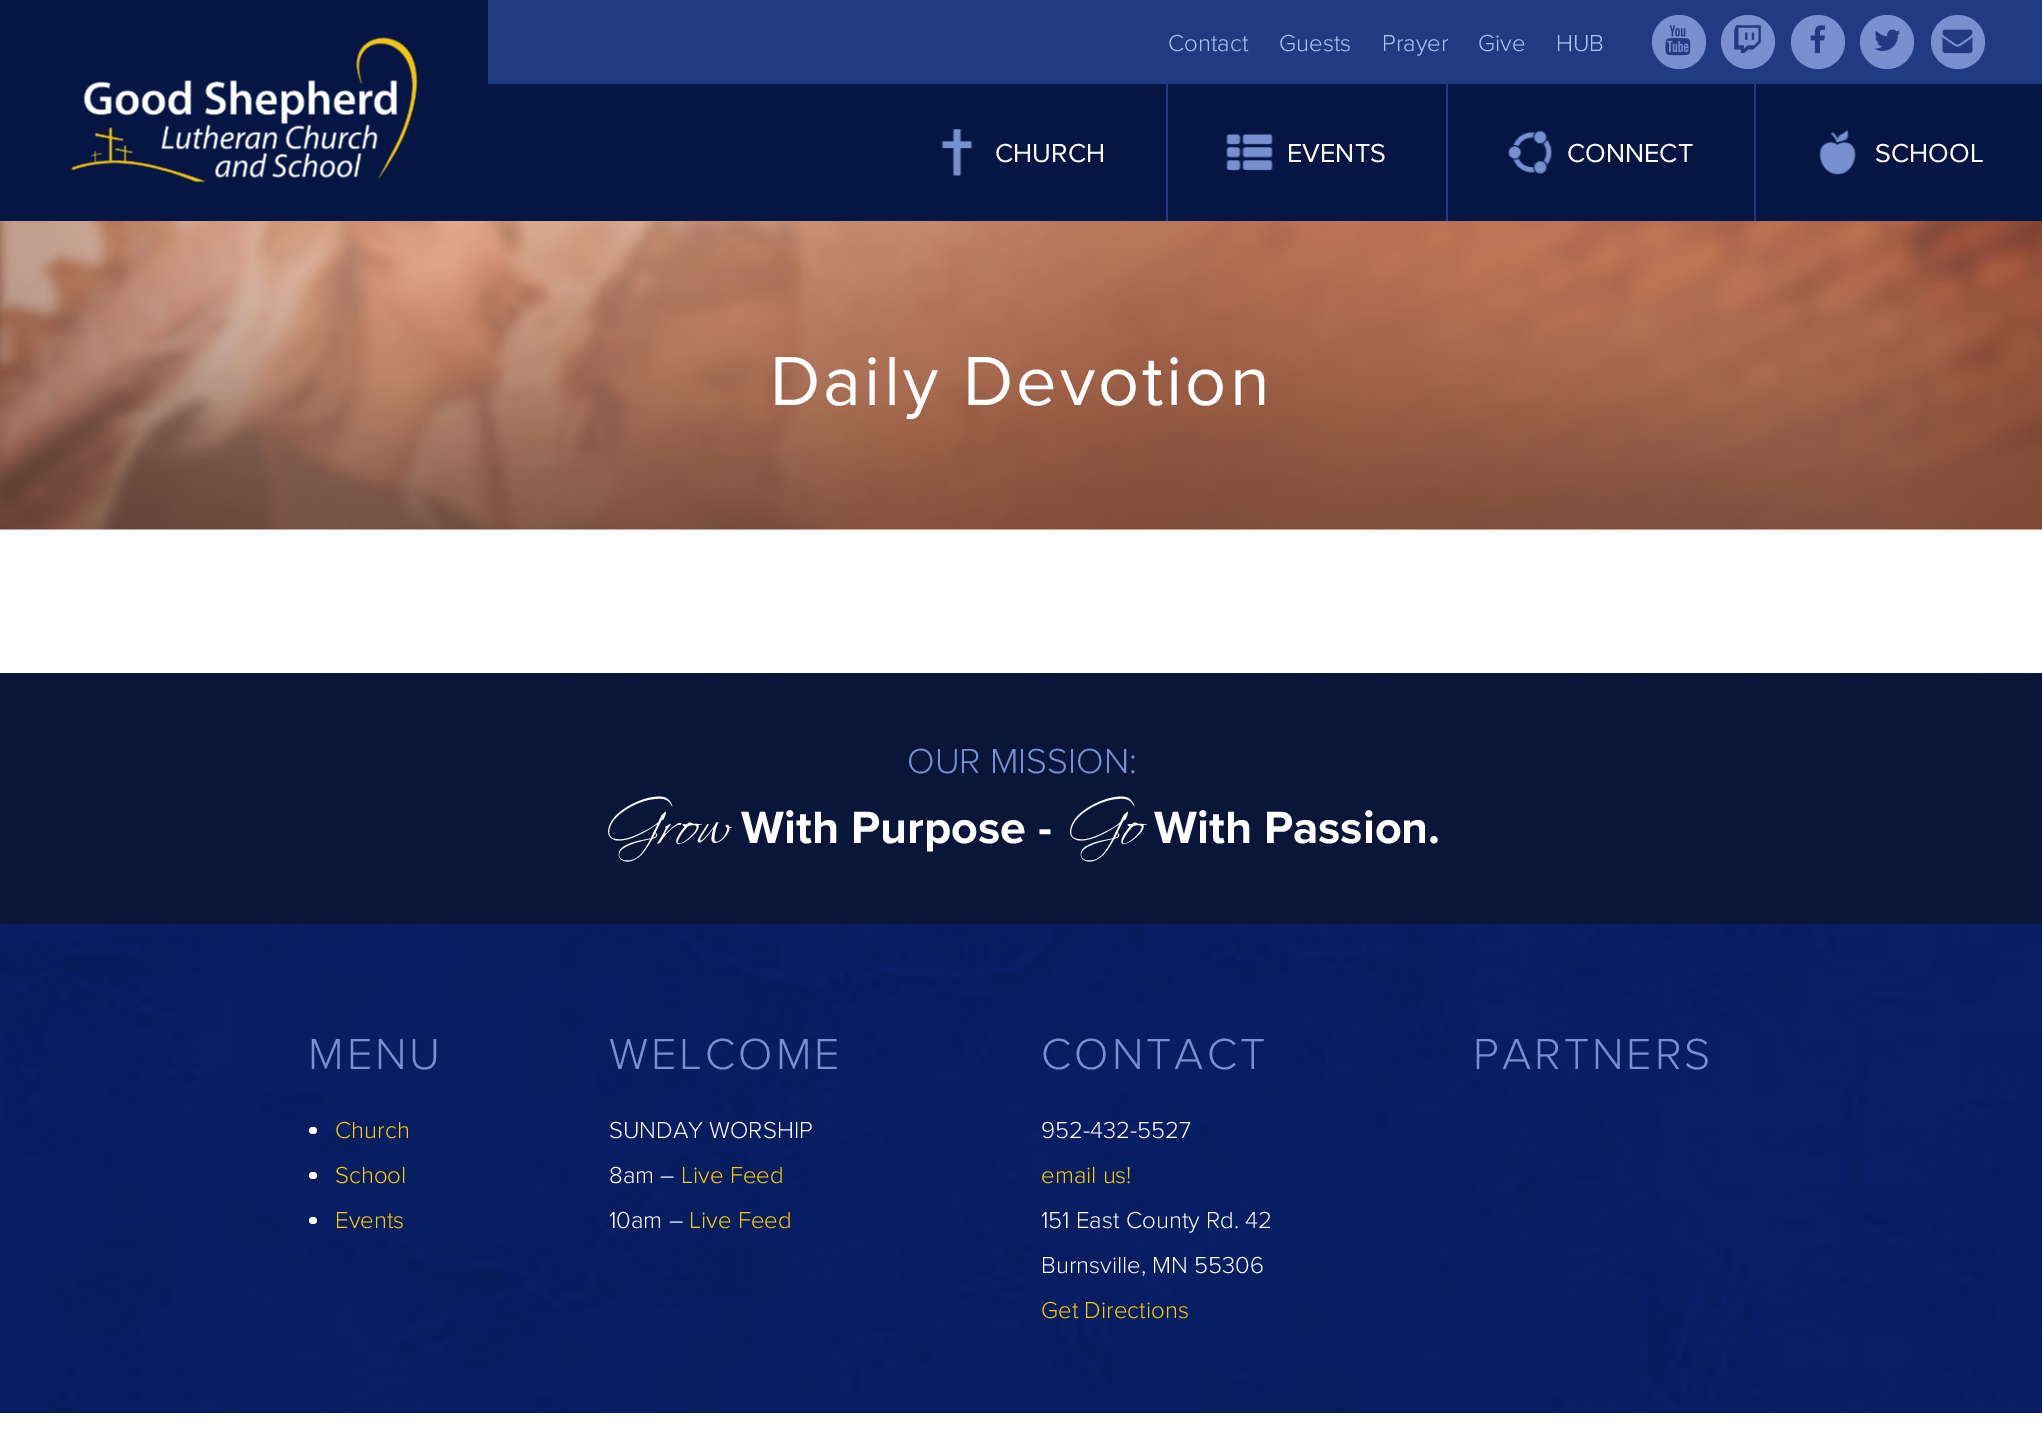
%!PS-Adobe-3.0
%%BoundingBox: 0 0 2042 1455
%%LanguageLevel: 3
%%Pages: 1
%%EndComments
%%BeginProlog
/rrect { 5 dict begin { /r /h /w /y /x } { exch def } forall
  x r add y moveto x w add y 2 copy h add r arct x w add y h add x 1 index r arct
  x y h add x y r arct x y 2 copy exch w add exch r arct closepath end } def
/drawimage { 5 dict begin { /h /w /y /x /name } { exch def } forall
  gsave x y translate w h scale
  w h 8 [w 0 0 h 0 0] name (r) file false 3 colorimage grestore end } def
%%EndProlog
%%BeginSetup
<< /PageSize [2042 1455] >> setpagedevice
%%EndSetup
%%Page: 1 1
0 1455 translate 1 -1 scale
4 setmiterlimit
1 setgray
0 0 2042 1455 rectfill
0.129 0.231 0.51 setrgbcolor
488 0 1554 84 rectfill
0.02 0.086 0.267 setrgbcolor
0 0 488 221 rectfill
(images/1.raw) 71 37 347 146 drawimage
0.475 0.565 0.816 setrgbcolor
newpath 1679 42 27 0 360 arc closepath fill
(images/2.raw) 1665 25 26 31 drawimage
newpath 1748 42 27 0 360 arc closepath fill
(images/3.raw) 1734 25 27 29 drawimage
newpath 1818 42 27 0 360 arc closepath fill
(images/4.raw) 1810 25 16 29 drawimage
newpath 1887 42 27 0 360 arc closepath fill
(images/5.raw) 1874 29 27 22 drawimage
newpath 1958 42 27 0 360 arc closepath fill
(images/6.raw) 1942 29 31 25 drawimage
0.02 0.086 0.267 setrgbcolor
488 84 1554 137 rectfill
(images/7.raw) 941 129 32 47 drawimage
0.129 0.231 0.51 setrgbcolor
1166 84 2 137 rectfill
(images/8.raw) 1226 133 47 38 drawimage
1446 84 2 137 rectfill
(images/9.raw) 1508 130 44 44 drawimage
1754 84 2 137 rectfill
(images/10.raw) 1819 130 37 45 drawimage
(images/11.raw) 0 221 2042 309 drawimage
(images/12.raw) 0 673 2042 740 drawimage
0.035 0.086 0.224 setrgbcolor
0 674 2042 250 rectfill
1 setgray
309 1127 8 7 3.5 rrect fill
309 1172 8 7 3.5 rrect fill
309 1217 8 7 3.5 rrect fill
/ProximaNova-Light [24 0 0 -24 0 0] selectfont
0.667 0.792 0.976 setrgbcolor
1168 51 moveto (Contact) show
1279 51 moveto (Guests) show
1382 51 moveto (Prayer) show
1478 51 moveto (Give) show
1556 51 moveto (HUB) show
/ProximaNova-Regular [27 0 0 -27 0 0] selectfont
1 setgray
995 162 moveto (CHURCH) show
1287 162 moveto (EVENTS) show
1567 162 moveto (CONNECT) show
1875 162 moveto (SCHOOL) show
/ProximaNova-Regular [72 0 0 -72 0 0] selectfont
770 405 moveto 3 0 (Daily Devotion) ashow
/ProximaNova-Light [36 0 0 -36 0 0] selectfont
0.475 0.565 0.816 setrgbcolor
907 773 moveto (OUR MISSION:) show
/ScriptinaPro-LightItalic [61 0 0 -61 0 0] selectfont
1 setgray
602 843 moveto (Grow) show
/ProximaNova-Bold [46.75 0 0 -46.75 0 0] selectfont
741 843 moveto (With Purpose -) show
/ScriptinaPro-LightItalic [61 0 0 -61 0 0] selectfont
1064 843 moveto (Go) show
/ProximaNova-Bold [46.75 0 0 -46.75 0 0] selectfont
1154 843 moveto (With Passion.) show
/ProximaNova-Light [45 0 0 -45 0 0] selectfont
0.475 0.565 0.816 setrgbcolor
308 1069 moveto 3 0 (MENU) ashow
/ProximaNova-Light [24 0 0 -24 0 0] selectfont
1 0.796 0.02 setrgbcolor
335 1138 moveto (Church) show
335 1183 moveto (School) show
335 1228 moveto (Events) show
/ProximaNova-Light [45 0 0 -45 0 0] selectfont
0.475 0.565 0.816 setrgbcolor
609 1069 moveto 3 0 (WELCOME) ashow
/ProximaNova-Light [24 0 0 -24 0 0] selectfont
1 setgray
609 1138 moveto (SUNDAY WORSHIP) show
609 1183 moveto (8am –) show
1 0.796 0.02 setrgbcolor
681 1183 moveto (Live Feed) show
1 setgray
609 1228 moveto (10am –) show
1 0.796 0.02 setrgbcolor
689 1228 moveto (Live Feed) show
/ProximaNova-Light [45 0 0 -45 0 0] selectfont
0.475 0.565 0.816 setrgbcolor
1041 1069 moveto 3 0 (CONTACT) ashow
/ProximaNova-Light [24 0 0 -24 0 0] selectfont
1 setgray
1041 1138 moveto (952-432-5527) show
1 0.796 0.02 setrgbcolor
1041 1183 moveto (email us!) show
1 setgray
1041 1228 moveto (151 East County Rd. 42) show
1041 1273 moveto (Burnsville, MN 55306) show
1 0.796 0.02 setrgbcolor
1041 1318 moveto (Get Directions) show
/ProximaNova-Light [45 0 0 -45 0 0] selectfont
0.475 0.565 0.816 setrgbcolor
1473 1069 moveto 3 0 (PARTNERS) ashow
showpage
%%EOF
